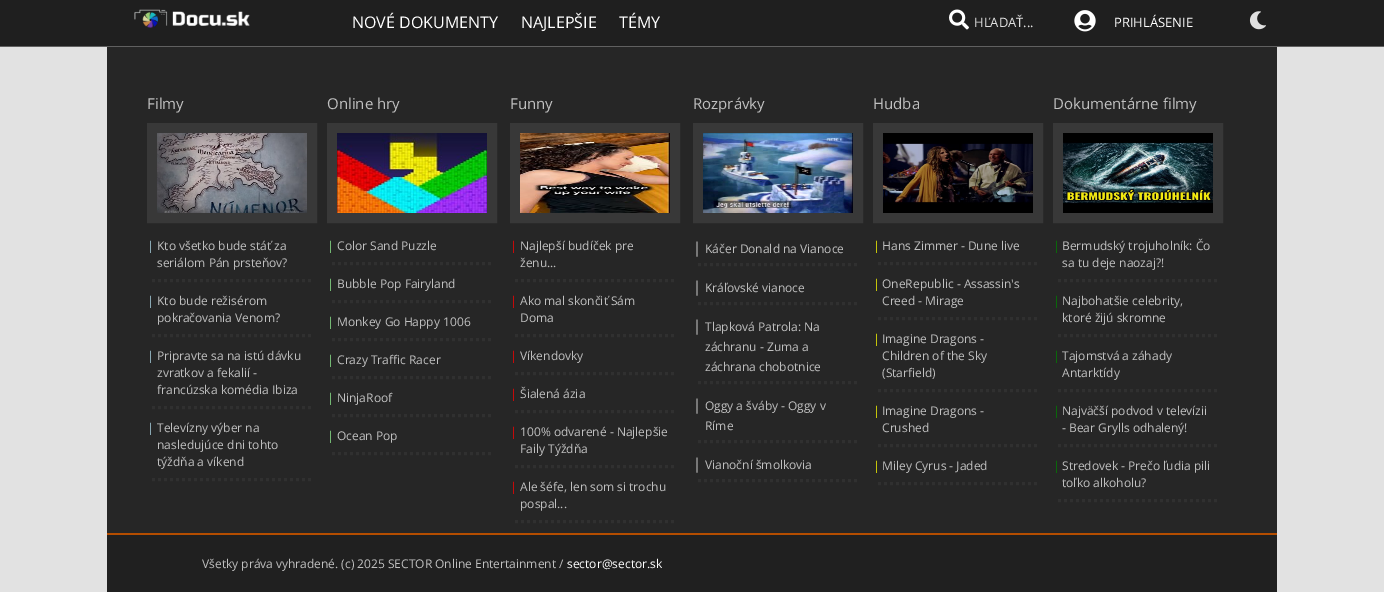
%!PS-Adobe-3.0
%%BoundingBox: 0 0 1384 592
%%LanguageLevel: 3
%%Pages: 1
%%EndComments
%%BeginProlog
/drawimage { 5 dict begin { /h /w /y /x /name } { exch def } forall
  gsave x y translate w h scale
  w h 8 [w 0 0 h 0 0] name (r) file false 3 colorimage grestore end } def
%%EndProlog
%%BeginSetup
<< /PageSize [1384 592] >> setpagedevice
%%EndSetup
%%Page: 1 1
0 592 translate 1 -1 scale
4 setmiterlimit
0.886 setgray
0 0 1384 592 rectfill
0.122 setgray
0 0 1384 46 rectfill
0.376 setgray
0 46 1384 1 rectfill
(images/1.raw) 134 9 116 19 drawimage
(images/2.raw) 949 9 20 21 drawimage
(images/3.raw) 1074 10 22 22 drawimage
(images/4.raw) 1249 11 17 19 drawimage
0.149 setgray
107 47 1170 486 rectfill
0.22 setgray
10 setlinewidth
152 128 160 90 rectstroke
(images/5.raw) 157 133 150 80 drawimage
0.188 setgray
3 setlinewidth
[3 3] 0 setdash
newpath 152 280.5 moveto 312 280.5 lineto stroke
newpath 152 335.5 moveto 312 335.5 lineto stroke
newpath 152 407.5 moveto 312 407.5 lineto stroke
newpath 152 479.5 moveto 312 479.5 lineto stroke
0.22 setgray
10 setlinewidth
[] 0 setdash
332 128 160 90 rectstroke
(images/6.raw) 337 133 150 80 drawimage
0.188 setgray
3 setlinewidth
[3 3] 0 setdash
newpath 332 263.5 moveto 492 263.5 lineto stroke
newpath 332 301.5 moveto 492 301.5 lineto stroke
newpath 332 339.5 moveto 492 339.5 lineto stroke
newpath 332 377.5 moveto 492 377.5 lineto stroke
newpath 332 415.5 moveto 492 415.5 lineto stroke
newpath 332 453.5 moveto 492 453.5 lineto stroke
0.22 setgray
10 setlinewidth
[] 0 setdash
515 128 160 90 rectstroke
(images/7.raw) 520 133 150 80 drawimage
0.188 setgray
3 setlinewidth
[3 3] 0 setdash
newpath 515 280.5 moveto 675 280.5 lineto stroke
newpath 515 335.5 moveto 675 335.5 lineto stroke
newpath 515 373.5 moveto 675 373.5 lineto stroke
newpath 515 411.5 moveto 675 411.5 lineto stroke
newpath 515 466.5 moveto 675 466.5 lineto stroke
newpath 515 521.5 moveto 675 521.5 lineto stroke
0.22 setgray
10 setlinewidth
[] 0 setdash
698 128 160 90 rectstroke
(images/8.raw) 703 133 150 80 drawimage
0.188 setgray
3 setlinewidth
[3 3] 0 setdash
newpath 698 264.5 moveto 858 264.5 lineto stroke
newpath 698 303.5 moveto 858 303.5 lineto stroke
newpath 698 382.5 moveto 858 382.5 lineto stroke
newpath 698 441.5 moveto 858 441.5 lineto stroke
newpath 698 480.5 moveto 858 480.5 lineto stroke
0.22 setgray
10 setlinewidth
[] 0 setdash
878 128 160 90 rectstroke
(images/9.raw) 883 133 150 80 drawimage
0.188 setgray
3 setlinewidth
[3 3] 0 setdash
newpath 878 263.5 moveto 1038 263.5 lineto stroke
newpath 878 318.5 moveto 1038 318.5 lineto stroke
newpath 878 390.5 moveto 1038 390.5 lineto stroke
newpath 878 445.5 moveto 1038 445.5 lineto stroke
newpath 878 483.5 moveto 1038 483.5 lineto stroke
0.22 setgray
10 setlinewidth
[] 0 setdash
1058 128 160 90 rectstroke
(images/10.raw) 1063 133 150 80 drawimage
0.188 setgray
3 setlinewidth
[3 3] 0 setdash
newpath 1058 280.5 moveto 1218 280.5 lineto stroke
newpath 1058 335.5 moveto 1218 335.5 lineto stroke
newpath 1058 390.5 moveto 1218 390.5 lineto stroke
newpath 1058 445.5 moveto 1218 445.5 lineto stroke
newpath 1058 500.5 moveto 1218 500.5 lineto stroke
0.125 setgray
107 535 1170 57 rectfill
0.706 0.302 0 setrgbcolor
107 533 1170 2 rectfill
/OpenSans-Regular [16 0 0 -16 0 0] selectfont
1 setgray
352 28 moveto (NOVÉ DOKUMENTY) show
521 28 moveto (NAJLEPŠIE) show
619 28 moveto (TÉMY) show
/OpenSans-Regular [13 0 0 -13 0 0] selectfont
0.878 setgray
974 27 moveto (HĽADAŤ...) show
1 setgray
1114 27 moveto (PRIHLÁSENIE) show
/OpenSans-Regular [15 0 0 -15 0 0] selectfont
0.753 setgray
147 109 moveto (Filmy) show
/OpenSans-Regular [12 0 0 -12 0 0] selectfont
0.678 0.847 0.902 setrgbcolor
147 250 moveto (|) show
0.753 setgray
157 250 moveto (Kto všetko bude stáť za) show
157 267 moveto (seriálom Pán prsteňov?) show
0.678 0.847 0.902 setrgbcolor
147 305 moveto (|) show
0.753 setgray
157 305 moveto (Kto bude režisérom) show
157 322 moveto (pokračovania Venom?) show
0.678 0.847 0.902 setrgbcolor
147 360 moveto (|) show
0.753 setgray
157 360 moveto (Pripravte sa na istú dávku) show
157 377 moveto (zvratkov a fekalií -) show
157 394 moveto (francúzska komédia Ibiza) show
0.678 0.847 0.902 setrgbcolor
147 432 moveto (|) show
0.753 setgray
157 432 moveto (Televízny výber na) show
157 449 moveto (nasledujúce dni tohto) show
157 466 moveto (týždňa a víkend) show
/OpenSans-Regular [15 0 0 -15 0 0] selectfont
327 109 moveto (Online hry) show
/OpenSans-Regular [12 0 0 -12 0 0] selectfont
0.565 0.933 0.565 setrgbcolor
327 250 moveto (|) show
0.753 setgray
337 250 moveto (Color Sand Puzzle) show
0.565 0.933 0.565 setrgbcolor
327 288 moveto (|) show
0.753 setgray
337 288 moveto (Bubble Pop Fairyland) show
0.565 0.933 0.565 setrgbcolor
327 326 moveto (|) show
0.753 setgray
337 326 moveto (Monkey Go Happy 1006) show
0.565 0.933 0.565 setrgbcolor
327 364 moveto (|) show
0.753 setgray
337 364 moveto (Crazy Traffic Racer) show
0.565 0.933 0.565 setrgbcolor
327 402 moveto (|) show
0.753 setgray
337 402 moveto (NinjaRoof) show
0.565 0.933 0.565 setrgbcolor
327 440 moveto (|) show
0.753 setgray
337 440 moveto (Ocean Pop) show
/OpenSans-Regular [15 0 0 -15 0 0] selectfont
510 109 moveto (Funny) show
/OpenSans-Regular [12 0 0 -12 0 0] selectfont
1 0 0 setrgbcolor
510 250 moveto (|) show
0.753 setgray
520 250 moveto (Najlepší budíček pre) show
520 267 moveto (ženu...) show
1 0 0 setrgbcolor
510 305 moveto (|) show
0.753 setgray
520 305 moveto (Ako mal skončiť Sám) show
520 322 moveto (Doma) show
1 0 0 setrgbcolor
510 360 moveto (|) show
0.753 setgray
520 360 moveto (Víkendovky) show
1 0 0 setrgbcolor
510 398 moveto (|) show
0.753 setgray
520 398 moveto (Šialená ázia) show
1 0 0 setrgbcolor
510 436 moveto (|) show
0.753 setgray
520 436 moveto (100% odvarené - Najlepšie) show
520 453 moveto (Faily Týždňa) show
1 0 0 setrgbcolor
510 491 moveto (|) show
0.753 setgray
520 491 moveto (Ale šéfe, len som si trochu) show
520 508 moveto (pospal...) show
/OpenSans-Regular [15 0 0 -15 0 0] selectfont
693 109 moveto (Rozprávky) show
693 253 moveto (|) show
/OpenSans-Regular [12 0 0 -12 0 0] selectfont
705 253 moveto (Káčer Donald na Vianoce) show
/OpenSans-Regular [15 0 0 -15 0 0] selectfont
693 292 moveto (|) show
/OpenSans-Regular [12 0 0 -12 0 0] selectfont
705 292 moveto (Kráľovské vianoce) show
/OpenSans-Regular [15 0 0 -15 0 0] selectfont
693 331 moveto (|) show
/OpenSans-Regular [12 0 0 -12 0 0] selectfont
705 331 moveto (Tlapková Patrola: Na) show
705 351 moveto (záchranu - Zuma a) show
705 371 moveto (záchrana chobotnice) show
/OpenSans-Regular [15 0 0 -15 0 0] selectfont
693 410 moveto (|) show
/OpenSans-Regular [12 0 0 -12 0 0] selectfont
705 410 moveto (Oggy a šváby - Oggy v) show
705 430 moveto (Ríme) show
/OpenSans-Regular [15 0 0 -15 0 0] selectfont
693 469 moveto (|) show
/OpenSans-Regular [12 0 0 -12 0 0] selectfont
705 469 moveto (Vianoční šmolkovia) show
/OpenSans-Regular [15 0 0 -15 0 0] selectfont
873 109 moveto (Hudba) show
/OpenSans-Regular [12 0 0 -12 0 0] selectfont
1 1 0 setrgbcolor
873 250 moveto (|) show
0.753 setgray
882 250 moveto (Hans Zimmer - Dune live) show
1 1 0 setrgbcolor
873 288 moveto (|) show
0.753 setgray
882 288 moveto (OneRepublic - Assassin's) show
882 305 moveto (Creed - Mirage) show
1 1 0 setrgbcolor
873 343 moveto (|) show
0.753 setgray
882 343 moveto (Imagine Dragons -) show
882 360 moveto (Children of the Sky) show
882 377 moveto (\(Starfield\)) show
1 1 0 setrgbcolor
873 415 moveto (|) show
0.753 setgray
882 415 moveto (Imagine Dragons -) show
882 432 moveto (Crushed) show
1 1 0 setrgbcolor
873 470 moveto (|) show
0.753 setgray
882 470 moveto (Miley Cyrus - Jaded) show
/OpenSans-Regular [15 0 0 -15 0 0] selectfont
1053 109 moveto (Dokumentárne filmy) show
/OpenSans-Regular [12 0 0 -12 0 0] selectfont
0 0.502 0 setrgbcolor
1053 250 moveto (|) show
0.753 setgray
1062 250 moveto (Bermudský trojuholník: Čo) show
1062 267 moveto (sa tu deje naozaj?!) show
0 0.502 0 setrgbcolor
1053 305 moveto (|) show
0.753 setgray
1062 305 moveto (Najbohatšie celebrity,) show
1062 322 moveto (ktoré žijú skromne) show
0 0.502 0 setrgbcolor
1053 360 moveto (|) show
0.753 setgray
1062 360 moveto (Tajomstvá a záhady) show
1062 377 moveto (Antarktídy) show
0 0.502 0 setrgbcolor
1053 415 moveto (|) show
0.753 setgray
1062 415 moveto (Najväčší podvod v televízii) show
1062 432 moveto (- Bear Grylls odhalený!) show
0 0.502 0 setrgbcolor
1053 470 moveto (|) show
0.753 setgray
1062 470 moveto (Stredovek - Prečo ľudia pili) show
1062 487 moveto (toľko alkoholu?) show
202 568 moveto (Všetky práva vyhradené. \(c\) 2025 SECTOR Online Entertainment /) show
1 setgray
567 568 moveto (sector@sector.sk) show
showpage
%%EOF
